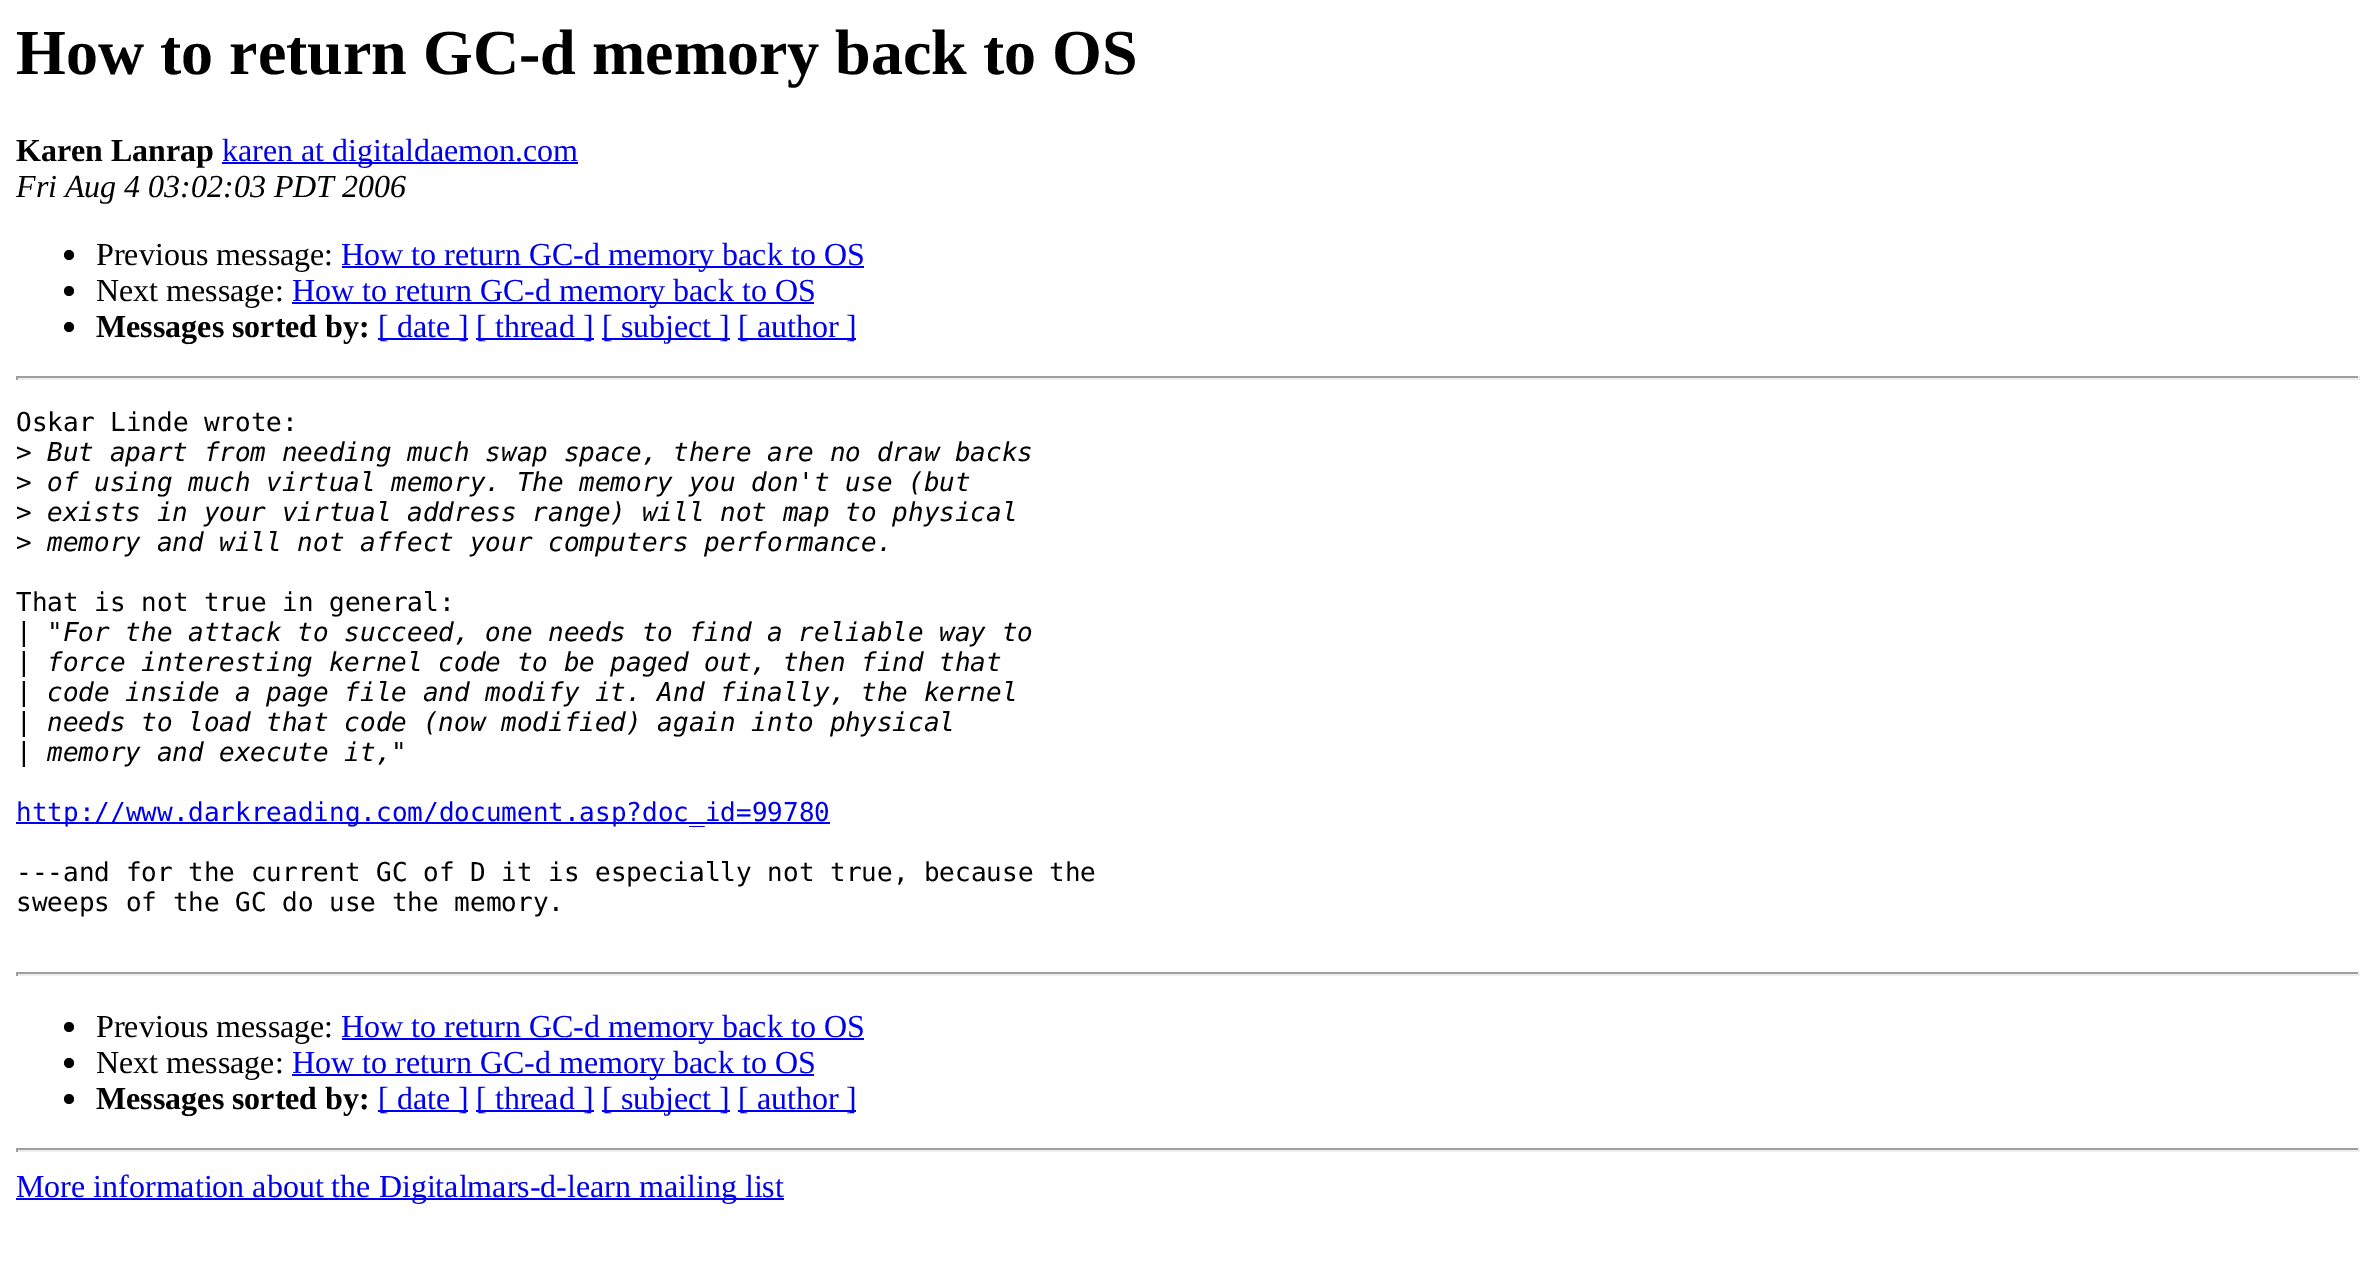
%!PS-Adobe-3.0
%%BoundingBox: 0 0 2375 1268
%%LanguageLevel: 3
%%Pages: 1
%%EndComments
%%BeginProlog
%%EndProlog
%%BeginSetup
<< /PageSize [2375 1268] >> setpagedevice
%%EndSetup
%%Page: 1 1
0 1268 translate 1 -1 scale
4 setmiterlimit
1 setgray
0 0 2375 1268 rectfill
0 0 0.933 setrgbcolor
222 162 356 2 rectfill
0 setgray
newpath 69 255 5 0 360 arc closepath fill
0 0 0.933 setrgbcolor
342 266 522 2 rectfill
0 setgray
newpath 69 291 5 0 360 arc closepath fill
0 0 0.933 setrgbcolor
292 302 522 2 rectfill
0 setgray
newpath 69 327 5 0 360 arc closepath fill
0 0 0.933 setrgbcolor
378 338 90 2 rectfill
476 338 118 2 rectfill
602 338 128 2 rectfill
738 338 118 2 rectfill
0.624 setgray
16 376 2344 2 rectfill
0.933 setgray
2358 376 2 4 rectfill
16 378 2344 2 rectfill
0.624 setgray
16 376 2 4 rectfill
0 0 0.933 setrgbcolor
16 822 814 2 rectfill
0.624 setgray
16 972 2344 2 rectfill
0.933 setgray
2358 972 2 4 rectfill
16 974 2344 2 rectfill
0.624 setgray
16 972 2 4 rectfill
0 setgray
newpath 69 1027 5 0 360 arc closepath fill
0 0 0.933 setrgbcolor
342 1038 522 2 rectfill
0 setgray
newpath 69 1063 5 0 360 arc closepath fill
0 0 0.933 setrgbcolor
292 1074 522 2 rectfill
0 setgray
newpath 69 1099 5 0 360 arc closepath fill
0 0 0.933 setrgbcolor
378 1110 90 2 rectfill
476 1110 118 2 rectfill
602 1110 128 2 rectfill
738 1110 118 2 rectfill
0.624 setgray
16 1148 2344 2 rectfill
0.933 setgray
2358 1148 2 4 rectfill
16 1150 2344 2 rectfill
0.624 setgray
16 1148 2 4 rectfill
0 0 0.933 setrgbcolor
16 1198 768 2 rectfill
/LiberationSerif-Bold [64 0 0 -64 0 0] selectfont
0 setgray
16 74 moveto (How to return GC-d memory back to OS) show
/LiberationSerif-Bold [32 0 0 -32 0 0] selectfont
16 161 moveto (Karen Lanrap) show
/LiberationSerif-Regular [32 0 0 -32 0 0] selectfont
0 0 0.933 setrgbcolor
222 161 moveto (karen at digitaldaemon.com) show
/LiberationSerif-Italic [32 0 0 -32 0 0] selectfont
0 setgray
16 197 moveto (Fri Aug 4 03:02:03 PDT 2006) show
/LiberationSerif-Regular [32 0 0 -32 0 0] selectfont
96 265 moveto (Previous message:) show
0 0 0.933 setrgbcolor
341 265 moveto (How to return GC-d memory back to OS) show
0 setgray
96 301 moveto (Next message:) show
0 0 0.933 setrgbcolor
292 301 moveto (How to return GC-d memory back to OS) show
/LiberationSerif-Bold [32 0 0 -32 0 0] selectfont
0 setgray
96 337 moveto (Messages sorted by:) show
/LiberationSerif-Regular [32 0 0 -32 0 0] selectfont
0 0 0.933 setrgbcolor
378 337 moveto ([ date ]) show
476 337 moveto ([ thread ]) show
602 337 moveto ([ subject ]) show
738 337 moveto ([ author ]) show
/DejaVuSansMono-Regular [26 0 0 -26 0 0] selectfont
0 setgray
16 431 moveto (Oskar Linde wrote:) show
16 461 moveto (>) show
/DejaVuSansMono-Italic [26 0 0 -26 0 0] selectfont
47 461 moveto (But apart from needing much swap space, there are no draw backs) show
/DejaVuSansMono-Regular [26 0 0 -26 0 0] selectfont
16 491 moveto (>) show
/DejaVuSansMono-Italic [26 0 0 -26 0 0] selectfont
47 491 moveto (of using much virtual memory. The memory you don't use \(but) show
/DejaVuSansMono-Regular [26 0 0 -26 0 0] selectfont
16 521 moveto (>) show
/DejaVuSansMono-Italic [26 0 0 -26 0 0] selectfont
47 521 moveto (exists in your virtual address range\) will not map to physical) show
/DejaVuSansMono-Regular [26 0 0 -26 0 0] selectfont
16 551 moveto (>) show
/DejaVuSansMono-Italic [26 0 0 -26 0 0] selectfont
47 551 moveto (memory and will not affect your computers performance.) show
/DejaVuSansMono-Regular [26 0 0 -26 0 0] selectfont
16 611 moveto (That is not true in general:) show
16 641 moveto (|) show
/DejaVuSansMono-Italic [26 0 0 -26 0 0] selectfont
47 641 moveto ("For the attack to succeed, one needs to find a reliable way to) show
/DejaVuSansMono-Regular [26 0 0 -26 0 0] selectfont
16 671 moveto (|) show
/DejaVuSansMono-Italic [26 0 0 -26 0 0] selectfont
47 671 moveto (force interesting kernel code to be paged out, then find that) show
/DejaVuSansMono-Regular [26 0 0 -26 0 0] selectfont
16 701 moveto (|) show
/DejaVuSansMono-Italic [26 0 0 -26 0 0] selectfont
47 701 moveto (code inside a page file and modify it. And finally, the kernel) show
/DejaVuSansMono-Regular [26 0 0 -26 0 0] selectfont
16 731 moveto (|) show
/DejaVuSansMono-Italic [26 0 0 -26 0 0] selectfont
47 731 moveto (needs to load that code \(now modified\) again into physical) show
/DejaVuSansMono-Regular [26 0 0 -26 0 0] selectfont
16 761 moveto (|) show
/DejaVuSansMono-Italic [26 0 0 -26 0 0] selectfont
47 761 moveto (memory and execute it,") show
/DejaVuSansMono-Regular [26 0 0 -26 0 0] selectfont
0 0 0.933 setrgbcolor
16 821 moveto (http://www.darkreading.com/document.asp?doc_id=99780) show
0 setgray
16 881 moveto (---and for the current GC of D it is especially not true, because the) show
16 911 moveto (sweeps of the GC do use the memory.) show
/LiberationSerif-Regular [32 0 0 -32 0 0] selectfont
96 1037 moveto (Previous message:) show
0 0 0.933 setrgbcolor
341 1037 moveto (How to return GC-d memory back to OS) show
0 setgray
96 1073 moveto (Next message:) show
0 0 0.933 setrgbcolor
292 1073 moveto (How to return GC-d memory back to OS) show
/LiberationSerif-Bold [32 0 0 -32 0 0] selectfont
0 setgray
96 1109 moveto (Messages sorted by:) show
/LiberationSerif-Regular [32 0 0 -32 0 0] selectfont
0 0 0.933 setrgbcolor
378 1109 moveto ([ date ]) show
476 1109 moveto ([ thread ]) show
602 1109 moveto ([ subject ]) show
738 1109 moveto ([ author ]) show
16 1197 moveto (More information about the Digitalmars-d-learn mailing list) show
showpage
%%EOF
